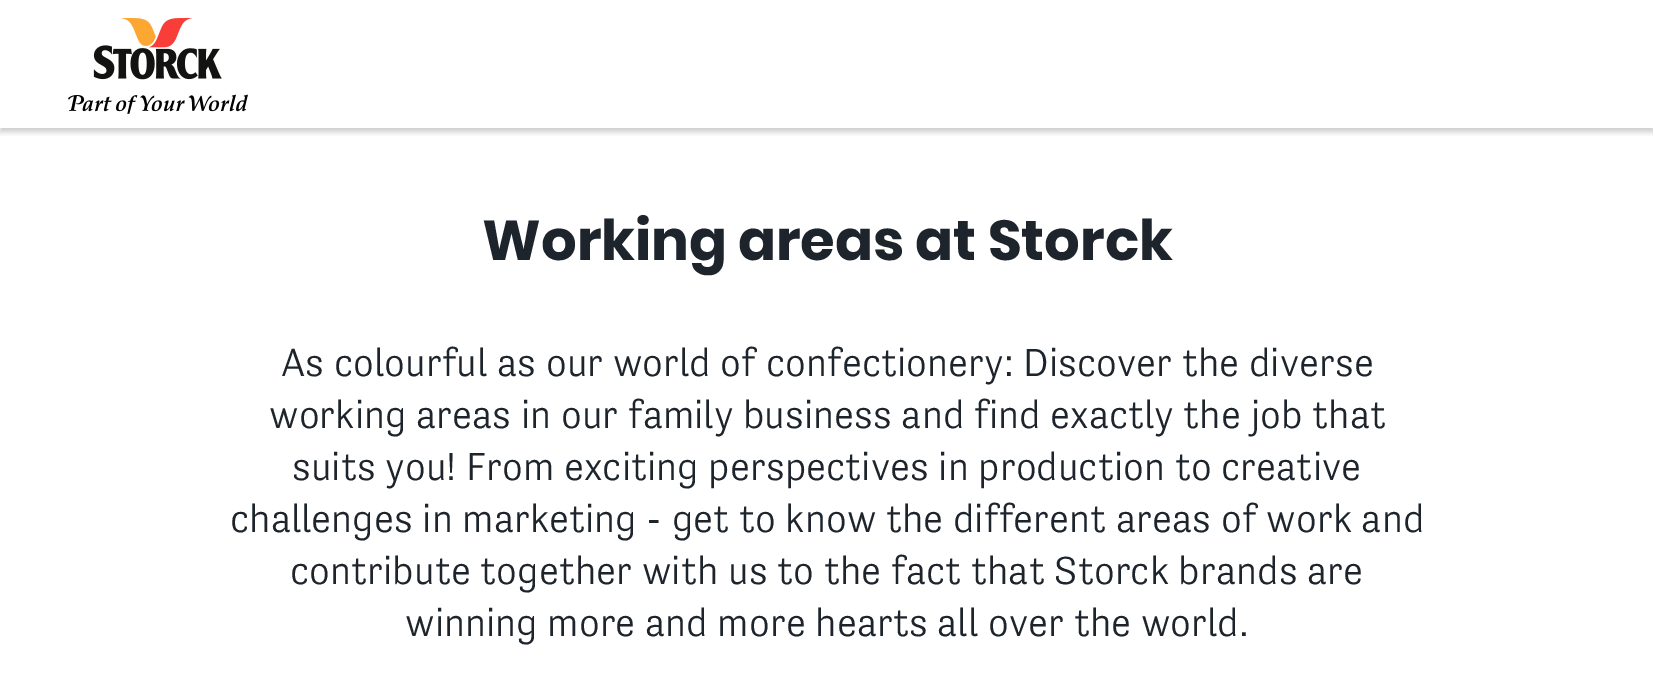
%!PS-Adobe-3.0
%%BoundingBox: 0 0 1653 699
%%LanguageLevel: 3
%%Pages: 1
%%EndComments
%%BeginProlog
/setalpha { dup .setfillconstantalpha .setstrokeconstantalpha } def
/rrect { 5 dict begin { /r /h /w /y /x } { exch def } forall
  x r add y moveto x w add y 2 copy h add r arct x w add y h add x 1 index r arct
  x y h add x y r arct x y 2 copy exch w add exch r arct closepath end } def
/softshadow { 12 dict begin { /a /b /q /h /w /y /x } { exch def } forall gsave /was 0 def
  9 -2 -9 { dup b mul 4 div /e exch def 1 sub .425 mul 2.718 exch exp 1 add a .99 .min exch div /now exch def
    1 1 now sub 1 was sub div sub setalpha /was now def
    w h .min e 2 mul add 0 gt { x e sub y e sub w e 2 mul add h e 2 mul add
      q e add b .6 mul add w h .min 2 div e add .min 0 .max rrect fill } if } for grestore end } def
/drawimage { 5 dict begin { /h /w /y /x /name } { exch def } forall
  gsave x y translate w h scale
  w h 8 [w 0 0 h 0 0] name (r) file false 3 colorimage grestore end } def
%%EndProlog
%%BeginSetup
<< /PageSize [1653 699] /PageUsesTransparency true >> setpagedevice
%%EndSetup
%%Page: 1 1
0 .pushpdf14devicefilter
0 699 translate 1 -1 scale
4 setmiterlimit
1 setgray
0 0 1653 699 rectfill
gsave
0 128 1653 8 rectclip
0 setgray
0 4 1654 128 0 3 0.2 softshadow
grestore
(images/1.raw) 68 18 180 96 drawimage
/Poppins-Bold [56 0 0 -56 0 0] selectfont
0.114 0.141 0.169 setrgbcolor
482 260 moveto (Working areas at Storck) show
/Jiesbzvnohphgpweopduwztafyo-Light [40 0 0 -40 0 0] selectfont
281 376 moveto (As colourful as our world of confectionery: Discover the diverse) show
269 428 moveto (working areas in our family business and find exactly the job that) show
292 480 moveto (suits you! From exciting perspectives in production to creative) show
230 532 moveto (challenges in marketing - get to know the different areas of work and) show
290 584 moveto (contribute together with us to the fact that Storck brands are) show
405 636 moveto (winning more and more hearts all over the world.) show
.poppdf14devicefilter showpage
%%EOF
